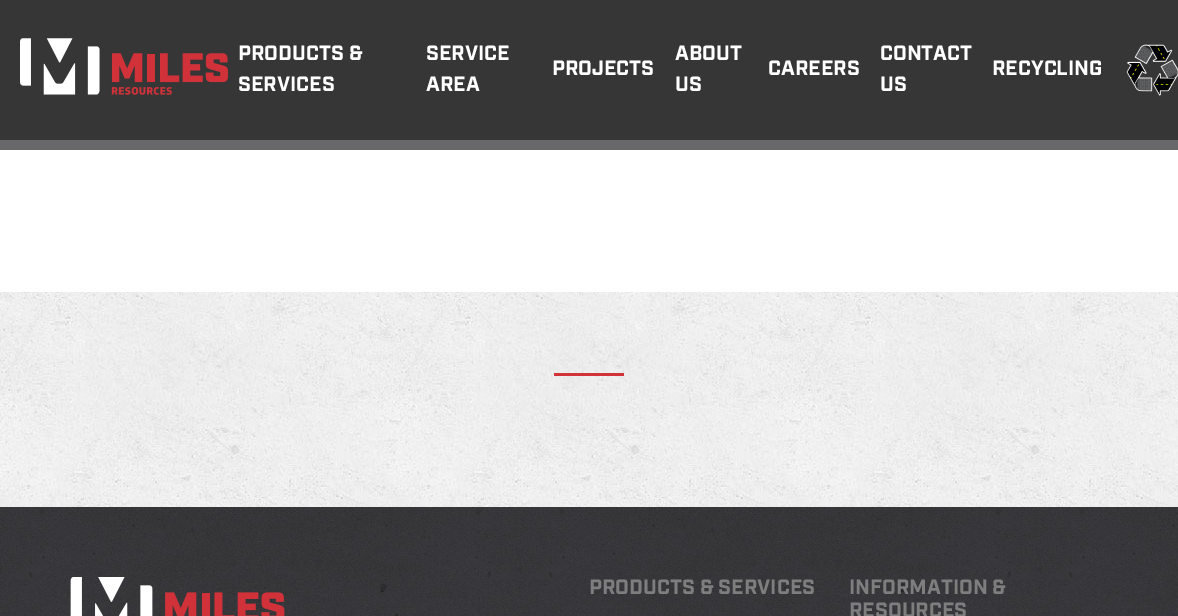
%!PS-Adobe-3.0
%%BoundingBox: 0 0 1178 616
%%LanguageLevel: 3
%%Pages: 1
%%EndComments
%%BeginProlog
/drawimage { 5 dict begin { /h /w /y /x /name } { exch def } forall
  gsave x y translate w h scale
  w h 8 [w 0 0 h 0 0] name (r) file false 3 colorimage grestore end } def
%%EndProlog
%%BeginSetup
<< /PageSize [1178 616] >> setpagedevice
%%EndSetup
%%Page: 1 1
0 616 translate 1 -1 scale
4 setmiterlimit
1 setgray
0 0 1178 616 rectfill
0.212 0.212 0.216 setrgbcolor
0 0 1178 140 rectfill
0.408 0.408 0.416 setrgbcolor
0 140 1178 10 rectfill
(images/1.raw) 20 38 208 57 drawimage
(images/2.raw) 1126 44 52 52 drawimage
(images/3.raw) 0 292 1178 215 drawimage
0.816 0.204 0.227 setrgbcolor
554 373 70 3 rectfill
(images/4.raw) 0 507 1178 109 drawimage
(images/5.raw) 70 577 215 39 drawimage
/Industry-Bold [20.75 0 0 -20.75 0 0] selectfont
1 setgray
238 60 moveto (PRODUCTS &) show
238 91 moveto (SERVICES) show
426 60 moveto (SERVICE) show
426 91 moveto (AREA) show
552 75 moveto (PROJECTS) show
675 60 moveto (ABOUT) show
675 91 moveto (US) show
768 75 moveto (CAREERS) show
880 60 moveto (CONTACT) show
880 91 moveto (US) show
992 75 moveto (RECYCLING) show
0.494 0.494 0.498 setrgbcolor
589 594 moveto (PRODUCTS & SERVICES) show
849 594 moveto (INFORMATION &) show
849 617 moveto (RESOURCES) show
showpage
%%EOF
